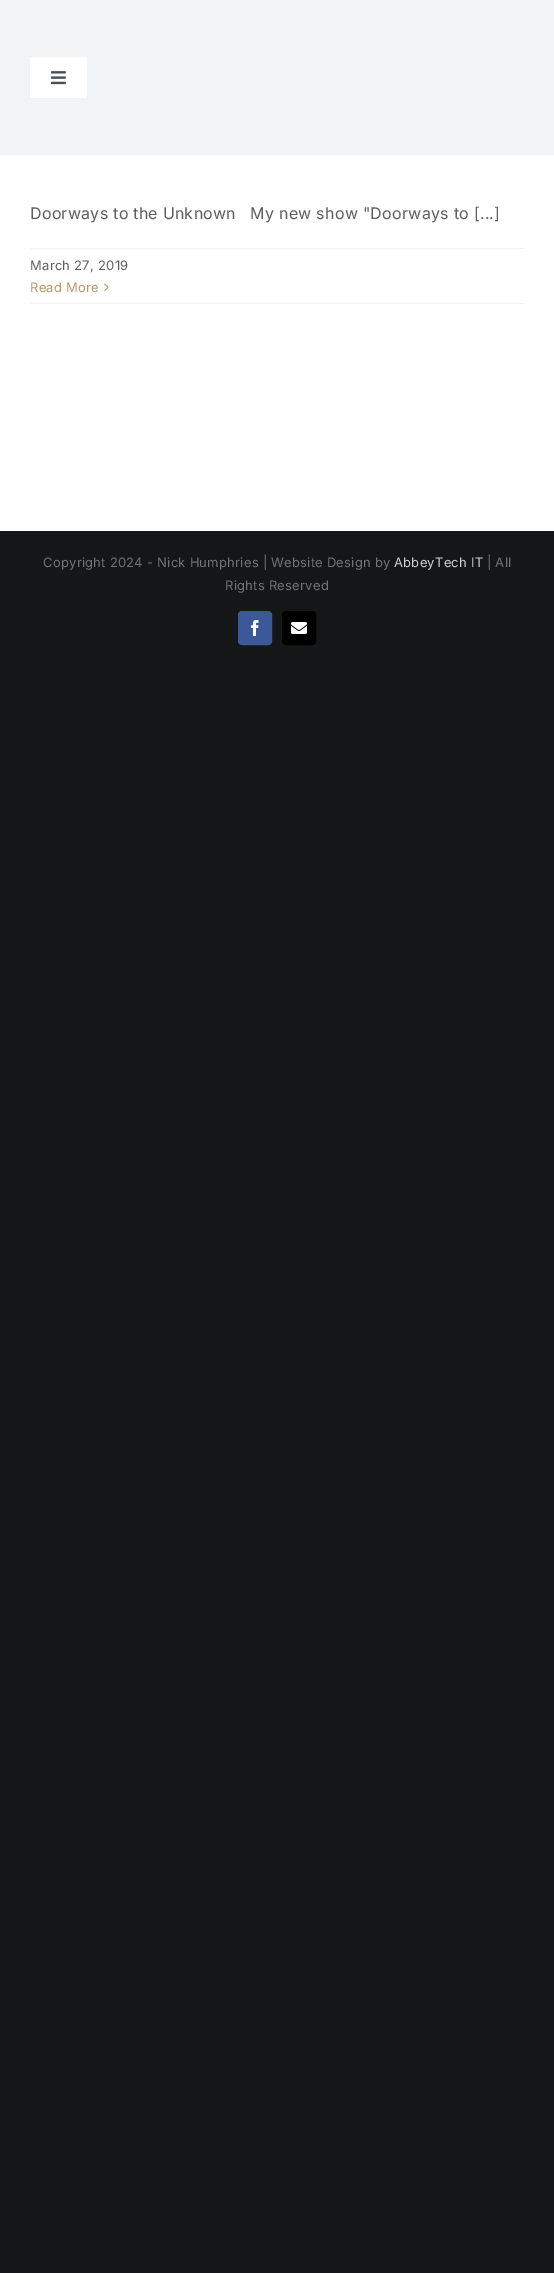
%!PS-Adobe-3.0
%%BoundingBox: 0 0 554 2273
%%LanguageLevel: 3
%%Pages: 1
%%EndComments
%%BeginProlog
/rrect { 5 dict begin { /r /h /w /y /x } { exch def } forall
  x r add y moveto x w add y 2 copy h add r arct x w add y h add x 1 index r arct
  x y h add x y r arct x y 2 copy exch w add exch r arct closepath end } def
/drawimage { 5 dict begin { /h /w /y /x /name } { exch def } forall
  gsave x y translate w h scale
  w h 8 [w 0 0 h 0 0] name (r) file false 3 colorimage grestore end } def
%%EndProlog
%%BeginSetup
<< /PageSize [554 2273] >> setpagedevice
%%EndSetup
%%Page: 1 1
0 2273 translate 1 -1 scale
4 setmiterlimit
0.078 0.086 0.09 setrgbcolor
0 0 554 2273 rectfill
1 setgray
0 155 554 376 rectfill
0.949 0.953 0.961 setrgbcolor
0 0 554 155 rectfill
1 setgray
30 57 57 41 rectfill
(images/1.raw) 51 71 15 14 drawimage
0.949 0.953 0.961 setrgbcolor
30 248 494 1 rectfill
30 303 494 1 rectfill
(images/2.raw) 104 283 5 9 drawimage
0.231 0.349 0.596 setrgbcolor
238.5 611.5 33 33 3.5 rrect gsave fill grestore
stroke
(images/3.raw) 251 620 8 16 drawimage
0 setgray
282.5 611.5 33 33 3.5 rrect gsave fill grestore
stroke
(images/4.raw) 291 622 16 12 drawimage
/Inter-Regular [16 0 0 -16 0 0] selectfont
0.369 setgray
30 219 moveto 0.25 0 (Doorways to the Unknown   My new show "Doorways to [...]) ashow
/Inter-Regular [13 0 0 -13 0 0] selectfont
30 270 moveto 0.25 0 (March 27, 2019) ashow
0.729 0.592 0.396 setrgbcolor
30 292 moveto 0.25 0 (Read More) ashow
0.447 0.451 0.455 setrgbcolor
43 567 moveto 0.25 0 (Copyright 2024 - Nick Humphries | Website Design by) ashow
0.816 0.816 0.82 setrgbcolor
394 567 moveto 0.25 0 (AbbeyTech IT) ashow
0.447 0.451 0.455 setrgbcolor
487 567 moveto 0.25 0 (| All) ashow
225 590 moveto 0.25 0 (Rights Reserved) ashow
showpage
%%EOF
